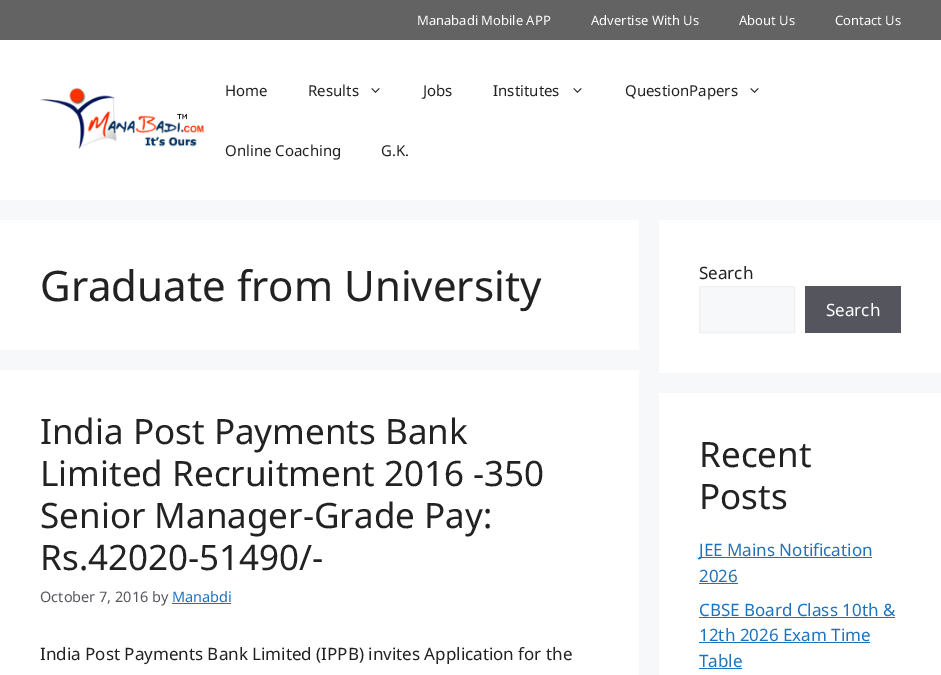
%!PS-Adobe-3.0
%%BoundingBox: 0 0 941 675
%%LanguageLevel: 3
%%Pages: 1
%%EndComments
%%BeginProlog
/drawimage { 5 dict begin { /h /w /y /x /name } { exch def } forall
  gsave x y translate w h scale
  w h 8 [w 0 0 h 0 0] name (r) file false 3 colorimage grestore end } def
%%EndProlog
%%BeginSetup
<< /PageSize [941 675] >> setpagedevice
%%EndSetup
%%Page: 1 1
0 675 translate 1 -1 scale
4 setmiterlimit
0.969 0.973 0.976 setrgbcolor
0 0 941 675 rectfill
0.388 setgray
0 0 941 40 rectfill
1 setgray
0 40 941 160 rectfill
(images/1.raw) 40 88 165 61 drawimage
(images/2.raw) 371 88 9 5 drawimage
(images/2.raw) 573 88 9 5 drawimage
(images/2.raw) 750 88 9 5 drawimage
0 220 639 130 rectfill
0 370 639 305 rectfill
0.118 0.451 0.745 setrgbcolor
172 603 59 1 rectfill
1 setgray
659 220 282 153 rectfill
0.969 0.973 0.976 setrgbcolor
newpath 699.5 286.5 moveto 794.5 286.5 lineto 794.5 332.5 lineto 699.5 332.5 lineto closepath gsave fill grestore
0.941 setgray
stroke
0.333 0.333 0.369 setrgbcolor
805 286 96 47 rectfill
1 setgray
659 393 282 282 rectfill
0.118 0.451 0.745 setrgbcolor
699 557 173 1 rectfill
699 583 39 1 rectfill
699 617 196 1 rectfill
699 642 171 1 rectfill
699 668 43 1 rectfill
/NotoSans-Regular [13 0 0 -13 0 0] selectfont
1 setgray
417 25 moveto (Manabadi Mobile APP) show
591 25 moveto (Advertise With Us) show
739 25 moveto (About Us) show
835 25 moveto (Contact Us) show
/NotoSans-Regular [15 0 0 -15 0 0] selectfont
0.133 setgray
225 96 moveto (Home) show
308 96 moveto (Results) show
423 96 moveto (Jobs) show
493 96 moveto (Institutes) show
625 96 moveto (QuestionPapers) show
225 156 moveto (Online Coaching) show
381 156 moveto (G.K.) show
/NotoSans-Regular [42 0 0 -42 0 0] selectfont
40 301 moveto (Graduate from University) show
/NotoSans-Regular [35 0 0 -35 0 0] selectfont
40 444 moveto (India Post Payments Bank) show
40 486 moveto (Limited Recruitment 2016 -350) show
40 528 moveto (Senior Manager-Grade Pay:) show
40 570 moveto (Rs.42020-51490/-) show
/NotoSans-Regular [14.5 0 0 -14.5 0 0] selectfont
0.341 0.341 0.376 setrgbcolor
40 602 moveto (October 7, 2016 by) show
0.118 0.451 0.745 setrgbcolor
172 602 moveto (Manabdi) show
/NotoSans-Regular [17 0 0 -17 0 0] selectfont
0.133 setgray
40 660 moveto (India Post Payments Bank Limited \(IPPB\) invites Application for the) show
699 279 moveto (Search) show
1 setgray
826 316 moveto (Search) show
/NotoSans-Regular [35 0 0 -35 0 0] selectfont
0.133 setgray
699 467 moveto (Recent) show
699 509 moveto (Posts) show
/NotoSans-Regular [17 0 0 -17 0 0] selectfont
0.118 0.451 0.745 setrgbcolor
699 556 moveto (JEE Mains Notification) show
699 582 moveto (2026) show
699 616 moveto (CBSE Board Class 10th &) show
699 641 moveto (12th 2026 Exam Time) show
699 667 moveto (Table) show
showpage
%%EOF
